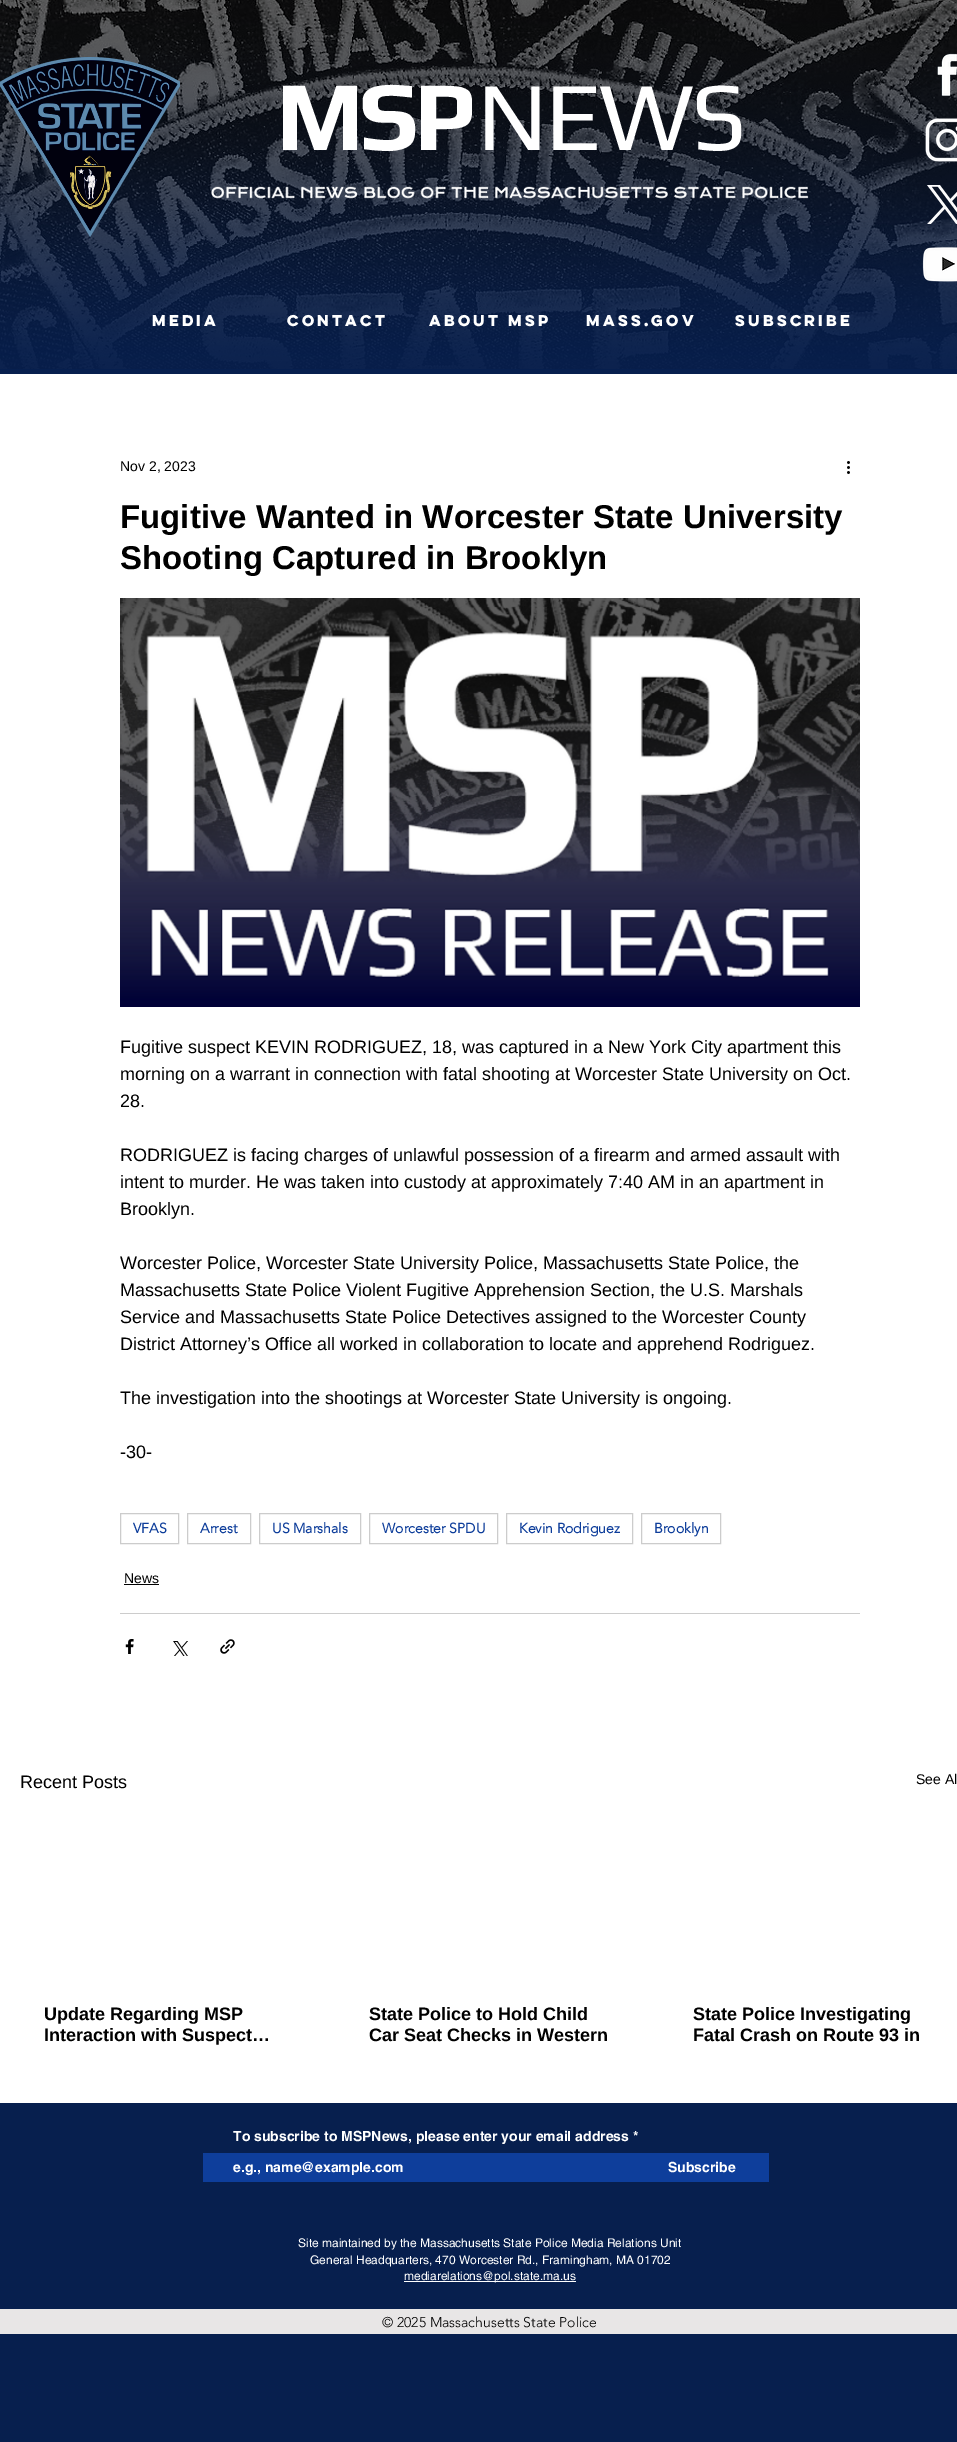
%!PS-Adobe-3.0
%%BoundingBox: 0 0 957 2442
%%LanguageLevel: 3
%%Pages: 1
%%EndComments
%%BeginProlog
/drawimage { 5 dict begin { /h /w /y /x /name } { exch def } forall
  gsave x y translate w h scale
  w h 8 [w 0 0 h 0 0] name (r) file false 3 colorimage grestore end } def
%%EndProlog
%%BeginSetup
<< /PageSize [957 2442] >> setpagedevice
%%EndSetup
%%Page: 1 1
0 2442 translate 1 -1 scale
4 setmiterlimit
0.027 0.122 0.306 setrgbcolor
0 0 957 2442 rectfill
(images/1.raw) 0 0 957 369 drawimage
(images/2.raw) 0 57 180 180 drawimage
(images/3.raw) 937 53 20 43 drawimage
(images/4.raw) 925 118 32 44 drawimage
(images/5.raw) 211 186 597 14 drawimage
(images/6.raw) 927 185 30 39 drawimage
(images/7.raw) 922 247 35 35 drawimage
1 setgray
0 374 957 1729 rectfill
(images/8.raw) 847 461 3 13 drawimage
(images/9.raw) 120 598 740 409 drawimage
0.8 setgray
120.5 1513.5 58 30 rectstroke
187.5 1513.5 63 30 rectstroke
259.5 1513.5 101 30 rectstroke
369.5 1513.5 128 30 rectstroke
506.5 1513.5 126 30 rectstroke
641.5 1513.5 79 30 rectstroke
0 setgray
124 1584 35 1 rectfill
0.8 setgray
120 1613 740 1 rectfill
(images/10.raw) 125 1639 9 15 drawimage
(images/11.raw) 173 1641 15 15 drawimage
(images/12.raw) 220 1639 15 15 drawimage
0.055 0.243 0.608 setrgbcolor
203 2153 566 29 rectfill
1 setgray
404 2281 172 1 rectfill
0.91 0.902 0.902 setrgbcolor
0 2309 957 25 rectfill
/Play-Bold [99 0 0 -99 0 0] selectfont
1 setgray
276 150 moveto -5 0 (MS) ashow
414 150 moveto 1 0 (P) ashow
/Play-Regular [98 0 0 -98 0 0] selectfont
477 150 moveto -3 0 (NEWS) ashow
/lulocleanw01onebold-Bold [14 0 0 -14 0 0] selectfont
152 326 moveto (Media) show
287 326 moveto (Contact) show
429 326 moveto (About MSP) show
586 326 moveto (Mass.gov) show
735 326 moveto (Subscribe) show
/LiberationSans-Regular [14 0 0 -14 0 0] selectfont
0 setgray
120 471 moveto (Nov 2, 2023) show
/LiberationSans-Bold [33 0 0 -33 0 0] selectfont
120 528 moveto (Fugitive Wanted in Worcester State University) show
120 569 moveto (Shooting Captured in Brooklyn) show
/LiberationSans-Regular [18 0 0 -18 0 0] selectfont
120 1053 moveto (Fugitive suspect KEVIN RODRIGUEZ, 18, was captured in a New York City apartment this) show
120 1080 moveto (morning on a warrant in connection with fatal shooting at Worcester State University on Oct.) show
120 1107 moveto (28.) show
120 1161 moveto (RODRIGUEZ is facing charges of unlawful possession of a firearm and armed assault with) show
120 1188 moveto (intent to murder. He was taken into custody at approximately 7:40 AM in an apartment in) show
120 1215 moveto (Brooklyn.) show
120 1269 moveto (Worcester Police, Worcester State University Police, Massachusetts State Police, the) show
120 1296 moveto (Massachusetts State Police Violent Fugitive Apprehension Section, the U.S. Marshals) show
120 1323 moveto (Service and Massachusetts State Police Detectives assigned to the Worcester County) show
120 1350 moveto (District Attorney’s Office all worked in collaboration to locate and apprehend Rodriguez.) show
120 1404 moveto (The investigation into the shootings at Worcester State University is ongoing.) show
120 1458 moveto (-30-) show
/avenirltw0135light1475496-Bold [14 0 0 -14 0 0] selectfont
0.055 0.243 0.608 setrgbcolor
133 1533 moveto (VFAS) show
200 1533 moveto (Arrest) show
272 1533 moveto (US Marshals) show
382 1533 moveto (Worcester SPDU) show
519 1533 moveto (Kevin Rodriguez) show
654 1533 moveto (Brooklyn) show
/LiberationSans-Regular [14 0 0 -14 0 0] selectfont
0 setgray
124 1583 moveto (News) show
/LiberationSans-Regular [18 0 0 -18 0 0] selectfont
20 1788 moveto (Recent Posts) show
/LiberationSans-Regular [14 0 0 -14 0 0] selectfont
916 1784 moveto (See Al) show
/LiberationSans-Bold [18 0 0 -18 0 0] selectfont
44 2020 moveto (Update Regarding MSP) show
44 2041 moveto (Interaction with Suspect…) show
369 2020 moveto (State Police to Hold Child) show
369 2041 moveto (Car Seat Checks in Western) show
693 2020 moveto (State Police Investigating) show
693 2041 moveto (Fatal Crash on Route 93 in) show
/helvetica-Bold [14 0 0 -14 0 0] selectfont
1 setgray
233 2141 moveto (To subscribe to MSPNews, please enter your email address *) show
233 2172 moveto (e.g., name@example.com) show
668 2172 moveto (Subscribe) show
/helvetica-Regular [12 0 0 -12 0 0] selectfont
298 2247 moveto (Site maintained by the Massachusetts State Police Media Relations Unit) show
310 2264 moveto (General Headquarters, 470 Worcester Rd., Framingham, MA 01702) show
404 2280 moveto (mediarelations@pol.state.ma.us) show
/avenirltw0135light1475496-Light [14 0 0 -14 0 0] selectfont
0 setgray
382 2327 moveto (© 2025 Massachusetts State Police) show
showpage
%%EOF
